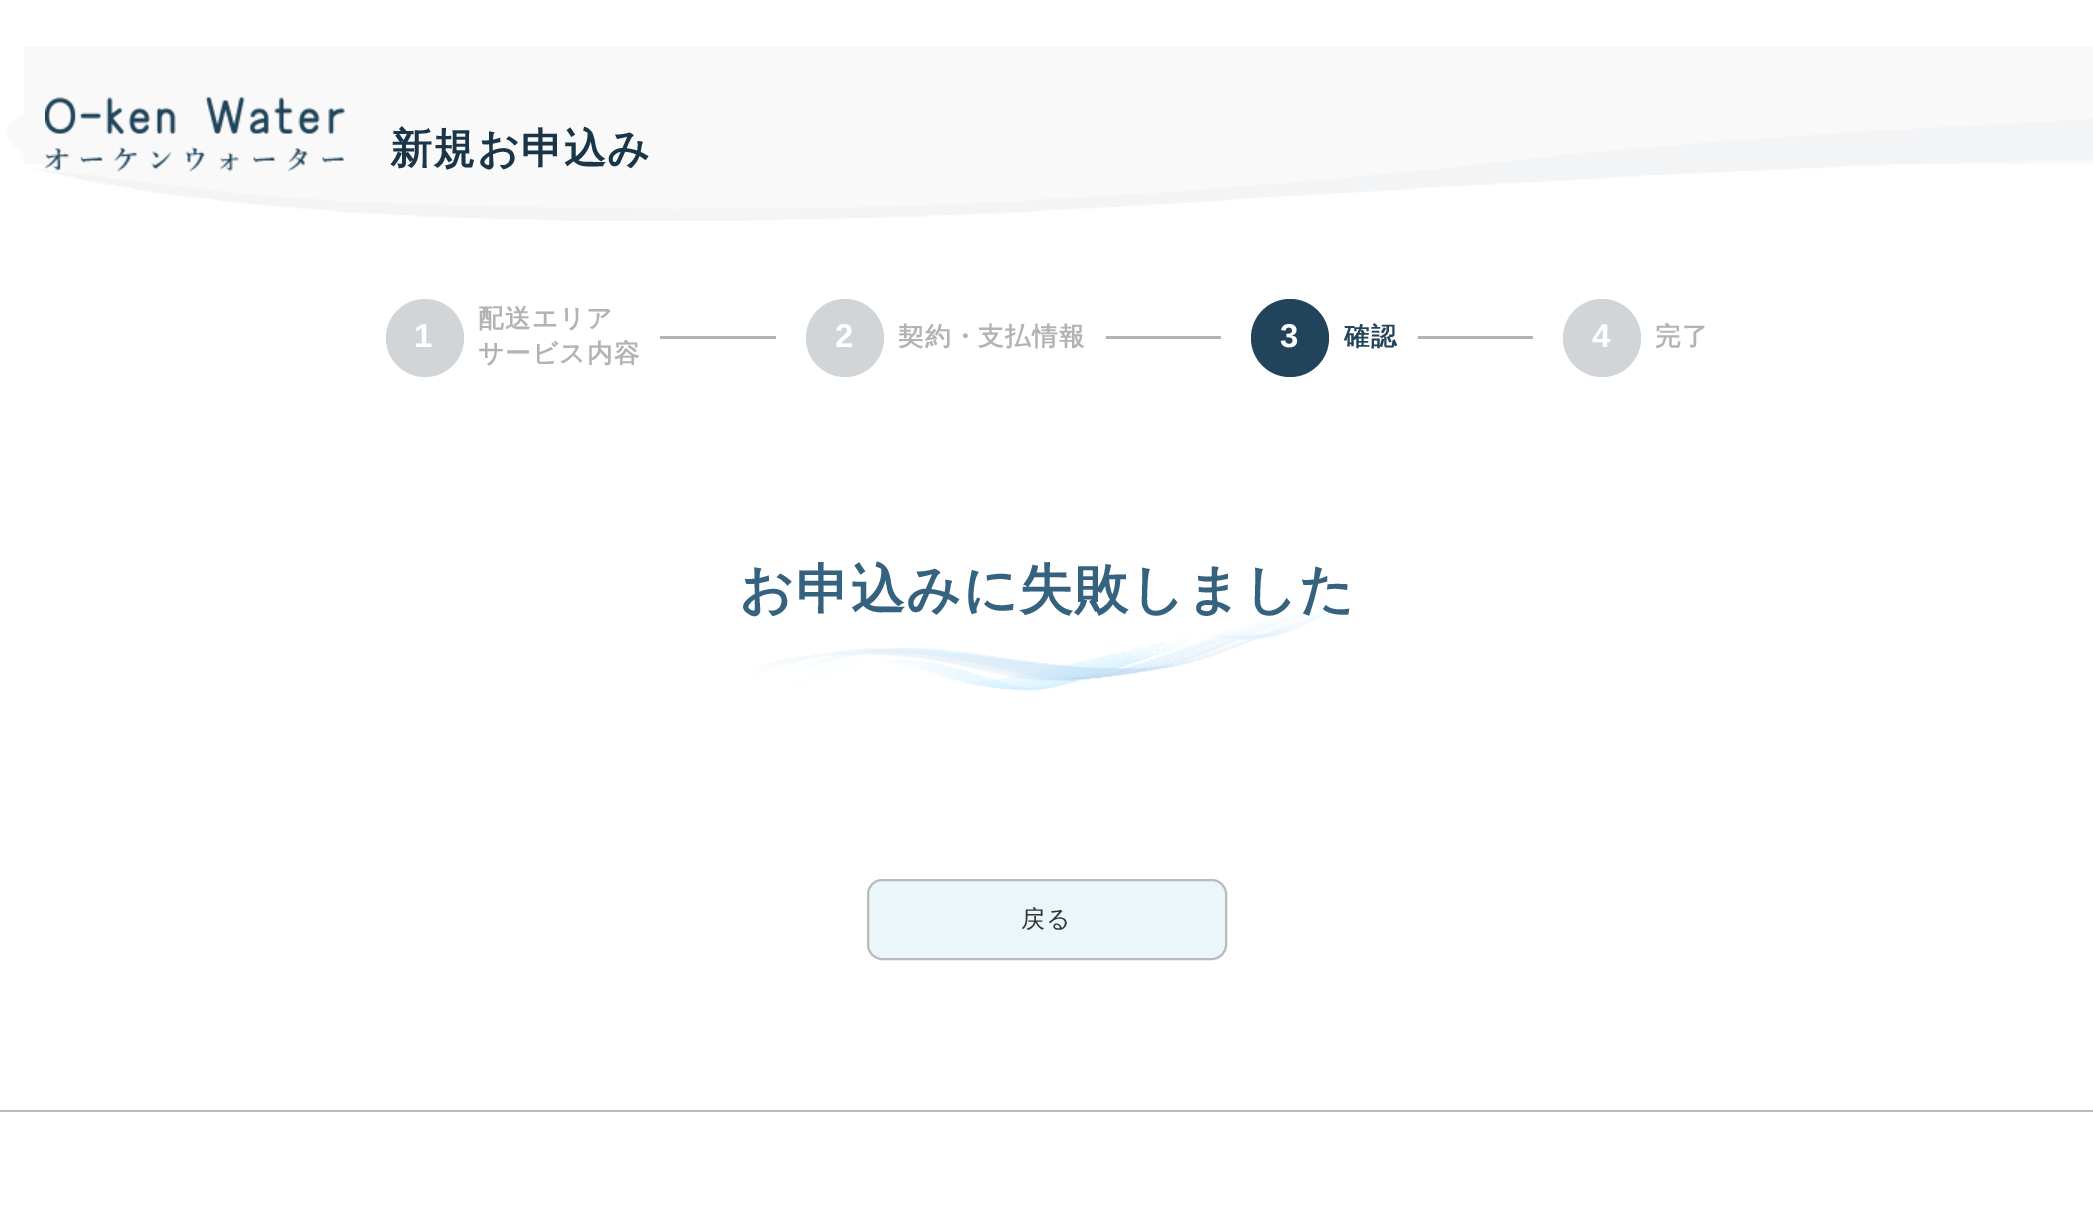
%!PS-Adobe-3.0
%%BoundingBox: 0 0 2093 1205
%%LanguageLevel: 3
%%Pages: 1
%%EndComments
%%BeginProlog
/rrect { 5 dict begin { /r /h /w /y /x } { exch def } forall
  x r add y moveto x w add y 2 copy h add r arct x w add y h add x 1 index r arct
  x y h add x y r arct x y 2 copy exch w add exch r arct closepath end } def
/drawimage { 5 dict begin { /h /w /y /x /name } { exch def } forall
  gsave x y translate w h scale
  w h 8 [w 0 0 h 0 0] name (r) file false 3 colorimage grestore end } def
%%EndProlog
%%BeginSetup
<< /PageSize [2093 1205] >> setpagedevice
%%EndSetup
%%Page: 1 1
0 1205 translate 1 -1 scale
4 setmiterlimit
1 setgray
0 0 2093 1205 rectfill
(images/1.raw) 6 47 2087 174 drawimage
(images/2.raw) 45 96 300 76 drawimage
0.824 0.835 0.847 setrgbcolor
newpath 425 338 39 0 360 arc closepath fill
0.706 0.698 0.698 setrgbcolor
660 336 116 3 rectfill
0.824 0.835 0.847 setrgbcolor
newpath 845 338 39 0 360 arc closepath fill
0.706 0.698 0.698 setrgbcolor
1106 336 115 3 rectfill
0.129 0.267 0.357 setrgbcolor
newpath 1290 338 39 0 360 arc closepath fill
0.706 0.698 0.698 setrgbcolor
1418 336 115 3 rectfill
0.824 0.835 0.847 setrgbcolor
newpath 1602 338 39 0 360 arc closepath fill
(images/3.raw) 752 600 595 91 drawimage
0.922 0.965 0.984 setrgbcolor
868 880 358 79 14 rrect gsave fill grestore
0.733 setgray
2 setlinewidth
stroke
0 1110 2093 2 rectfill
/WenQuanYiZenHei-Bold [42 0 0 -42 0 0] selectfont
0.098 0.208 0.278 setrgbcolor
390 163 moveto 1.25 0 (新規お申込み) ashow
/LiberationSans-Bold [33 0 0 -33 0 0] selectfont
1 setgray
414 347 moveto 1.25 0 (1) ashow
/WenQuanYiZenHei-Bold [25.5 0 0 -25.5 0 0] selectfont
0.706 0.698 0.698 setrgbcolor
478 327 moveto 1.25 0 (配送エリア) ashow
478 362 moveto 1.25 0 (サービス内容) ashow
/LiberationSans-Bold [33 0 0 -33 0 0] selectfont
1 setgray
835 347 moveto 1.25 0 (2) ashow
/WenQuanYiZenHei-Bold [25.5 0 0 -25.5 0 0] selectfont
0.706 0.698 0.698 setrgbcolor
898 345 moveto 1.25 0 (契約・支払情報) ashow
/LiberationSans-Bold [33 0 0 -33 0 0] selectfont
1 setgray
1280 347 moveto 1.25 0 (3) ashow
/WenQuanYiZenHei-Bold [25.5 0 0 -25.5 0 0] selectfont
0.129 0.267 0.357 setrgbcolor
1344 345 moveto 1.25 0 (確認) ashow
/LiberationSans-Bold [33 0 0 -33 0 0] selectfont
1 setgray
1592 347 moveto 1.25 0 (4) ashow
/WenQuanYiZenHei-Bold [25.5 0 0 -25.5 0 0] selectfont
0.706 0.698 0.698 setrgbcolor
1655 345 moveto 1.25 0 (完了) ashow
/WenQuanYiZenHei-Bold [54 0 0 -54 0 0] selectfont
0.204 0.384 0.498 setrgbcolor
739 608 moveto 1.25 0 (お申込みに失敗しました) ashow
/WenQuanYiZenHei-Medium [24 0 0 -24 0 0] selectfont
0.2 setgray
1021 927 moveto 1.25 0 (戻る) ashow
showpage
%%EOF
